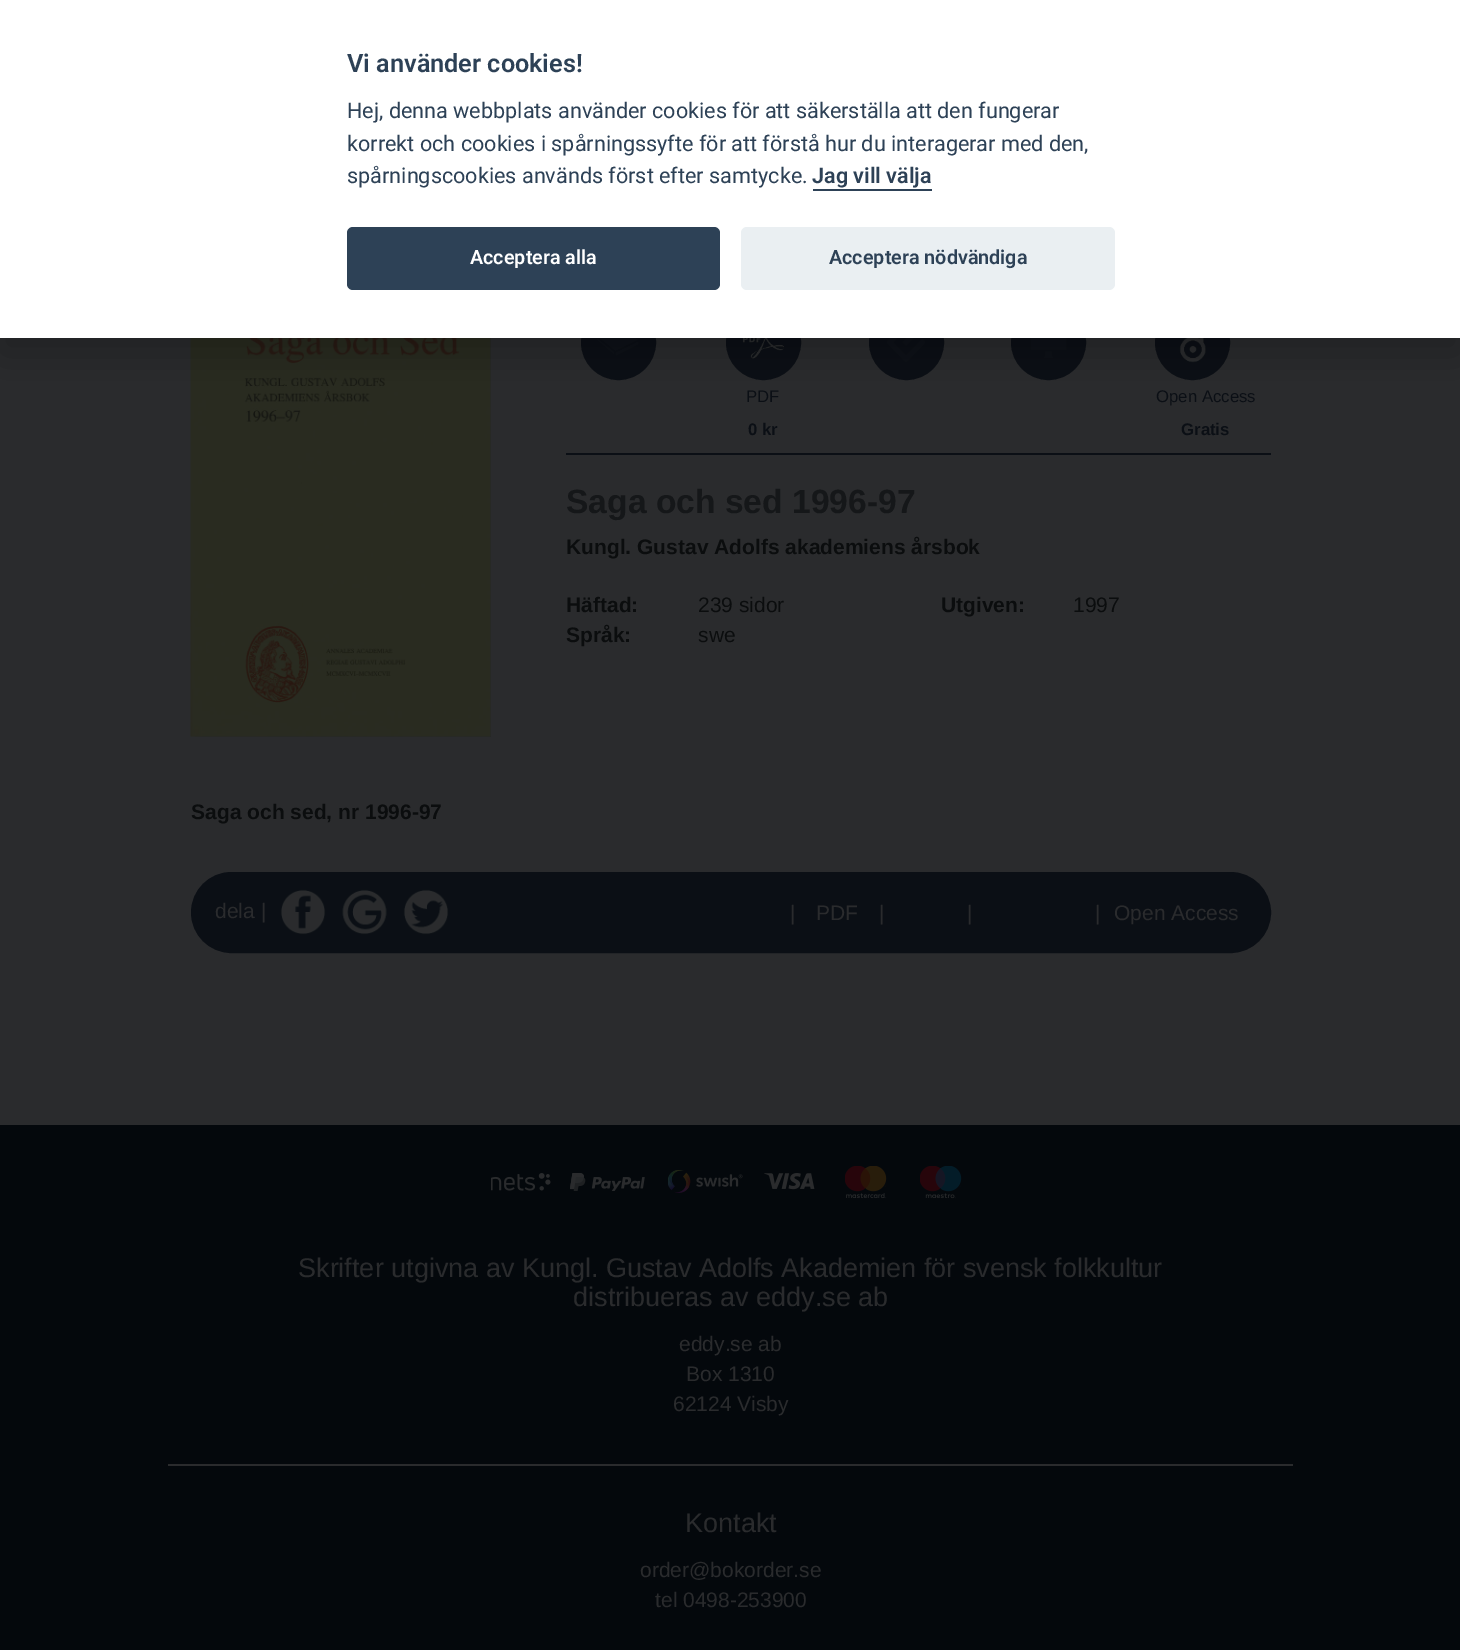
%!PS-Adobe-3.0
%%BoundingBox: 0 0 1460 1650
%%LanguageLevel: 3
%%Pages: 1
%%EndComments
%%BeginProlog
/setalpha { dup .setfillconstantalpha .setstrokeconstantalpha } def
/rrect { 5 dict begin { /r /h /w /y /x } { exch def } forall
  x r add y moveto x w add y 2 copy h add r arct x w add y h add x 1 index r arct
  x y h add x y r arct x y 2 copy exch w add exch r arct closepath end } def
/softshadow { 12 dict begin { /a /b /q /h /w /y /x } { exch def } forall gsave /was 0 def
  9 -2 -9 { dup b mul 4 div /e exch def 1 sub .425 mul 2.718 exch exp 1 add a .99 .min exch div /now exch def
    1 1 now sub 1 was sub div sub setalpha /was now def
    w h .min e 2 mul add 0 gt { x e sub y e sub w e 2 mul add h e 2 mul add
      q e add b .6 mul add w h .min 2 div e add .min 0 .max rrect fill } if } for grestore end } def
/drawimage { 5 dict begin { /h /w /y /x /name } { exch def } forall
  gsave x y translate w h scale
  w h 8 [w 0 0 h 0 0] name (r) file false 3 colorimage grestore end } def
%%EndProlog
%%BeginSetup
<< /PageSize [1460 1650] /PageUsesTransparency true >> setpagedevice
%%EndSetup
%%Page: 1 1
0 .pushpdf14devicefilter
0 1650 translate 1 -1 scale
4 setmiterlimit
0.165 0.169 0.176 setrgbcolor
0 0 1460 1650 rectfill
(images/1.raw) 190 338 301 399 drawimage
0.043 0.059 0.082 setrgbcolor
newpath 618.5 342.5 36.5 0 360 arc closepath gsave fill grestore
2 setlinewidth
stroke
(images/2.raw) 597 338 42 18 drawimage
newpath 906.5 342.5 36.5 0 360 arc closepath gsave fill grestore
stroke
(images/3.raw) 887 338 38 24 drawimage
newpath 1048.5 342.5 36.5 0 360 arc closepath gsave fill grestore
stroke
(images/4.raw) 1030 338 37 20 drawimage
newpath 763.5 342.5 36.5 0 360 arc closepath gsave fill grestore
stroke
(images/5.raw) 742 338 42 21 drawimage
newpath 1192.5 342.5 36.5 0 360 arc closepath gsave fill grestore
stroke
(images/6.raw) 1179 338 27 25 drawimage
0.008 0.008 0.012 setrgbcolor
0 15 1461 338 0 22.5 0.28 softshadow
1 setgray
0 0 1460 338 rectfill
0.176 0.255 0.337 setrgbcolor
813 189 119 2 rectfill
347 227 373 63 6 rrect fill
0.918 0.937 0.949 setrgbcolor
741 227 374 63 6 rrect fill
0.043 0.059 0.082 setrgbcolor
566 453 705 2 rectfill
192 873 1078 79 39.5 rrect gsave fill grestore
stroke
(images/7.raw) 280 889 46 46 drawimage
(images/8.raw) 342 889 45 46 drawimage
(images/9.raw) 403 889 46 46 drawimage
0.016 0.031 0.047 setrgbcolor
0 1125 1460 525 rectfill
0.165 0.169 0.176 setrgbcolor
168 1464 1125 2 rectfill
(images/10.raw) 491 1173 60 18 drawimage
(images/11.raw) 570 1173 75 18 drawimage
(images/12.raw) 668 1170 75 23 drawimage
(images/13.raw) 764 1173 51 17 drawimage
(images/14.raw) 845 1166 42 33 drawimage
(images/15.raw) 920 1166 42 33 drawimage
/Roboto-SemiBold [25.25 0 0 -25.25 0 0] selectfont
0.176 0.255 0.337 setrgbcolor
347 72 moveto (Vi använder cookies!) show
/Roboto-Regular [21.6 0 0 -21.6 0 0] selectfont
347 118 moveto (Hej, denna webbplats använder cookies för att säkerställa att den fungerar) show
347 151 moveto (korrekt och cookies i spårningssyfte för att förstå hur du interagerar med den,) show
347 183 moveto (spårningscookies används först efter samtycke.) show
/Roboto-SemiBold [21.6 0 0 -21.6 0 0] selectfont
812 183 moveto (Jag vill välja) show
/Roboto-SemiBold [19.75 0 0 -19.75 0 0] selectfont
1 setgray
470 264 moveto (Acceptera alla) show
0.176 0.255 0.337 setrgbcolor
829 264 moveto (Acceptera nödvändiga) show
/LiberationSans-Regular [16.75 0 0 -16.75 0 0] selectfont
0.043 0.059 0.082 setrgbcolor
746 402 moveto (PDF) show
/LiberationSans-Bold [16.75 0 0 -16.75 0 0] selectfont
748 435 moveto (0 kr) show
/LiberationSans-Regular [16.75 0 0 -16.75 0 0] selectfont
1156 402 moveto (Open Access) show
/LiberationSans-Bold [16.75 0 0 -16.75 0 0] selectfont
1181 435 moveto (Gratis) show
/LiberationSans-Bold [33.6 0 0 -33.6 0 0] selectfont
0.082 0.09 0.098 setrgbcolor
566 513 moveto (Saga och sed 1996-97) show
/LiberationSans-Bold [21 0 0 -21 0 0] selectfont
0.043 0.051 0.055 setrgbcolor
566 554 moveto (Kungl. Gustav Adolfs akademiens årsbok) show
566 612 moveto (Häftad:) show
/LiberationSans-Regular [21 0 0 -21 0 0] selectfont
698 612 moveto (239 sidor) show
/LiberationSans-Bold [21 0 0 -21 0 0] selectfont
941 612 moveto (Utgiven:) show
/LiberationSans-Regular [21 0 0 -21 0 0] selectfont
1073 612 moveto (1997) show
/LiberationSans-Bold [21 0 0 -21 0 0] selectfont
566 642 moveto (Språk:) show
/LiberationSans-Regular [21 0 0 -21 0 0] selectfont
698 642 moveto (swe) show
/LiberationSans-Bold [21 0 0 -21 0 0] selectfont
191 819 moveto (Saga och sed, nr 1996-97) show
/LiberationSans-Regular [21 0 0 -21 0 0] selectfont
0.165 0.169 0.176 setrgbcolor
215 918 moveto (dela |) show
790 920 moveto (|) show
816 920 moveto (PDF) show
879 920 moveto (|) show
967 920 moveto (|) show
1095 920 moveto (|) show
1114 920 moveto (Open Access) show
/LiberationSans-Regular [27 0 0 -27 0 0] selectfont
298 1277 moveto (Skrifter utgivna av Kungl. Gustav Adolfs Akademien för svensk folkkultur) show
573 1306 moveto (distribueras av eddy.se ab) show
/LiberationSans-Regular [21 0 0 -21 0 0] selectfont
679 1351 moveto (eddy.se ab) show
686 1381 moveto (Box 1310) show
673 1411 moveto (62124 Visby) show
/LiberationSans-Regular [27 0 0 -27 0 0] selectfont
685 1532 moveto (Kontakt) show
/LiberationSans-Regular [21 0 0 -21 0 0] selectfont
640 1577 moveto (order@bokorder.se) show
655 1607 moveto (tel 0498-253900) show
.poppdf14devicefilter showpage
%%EOF
